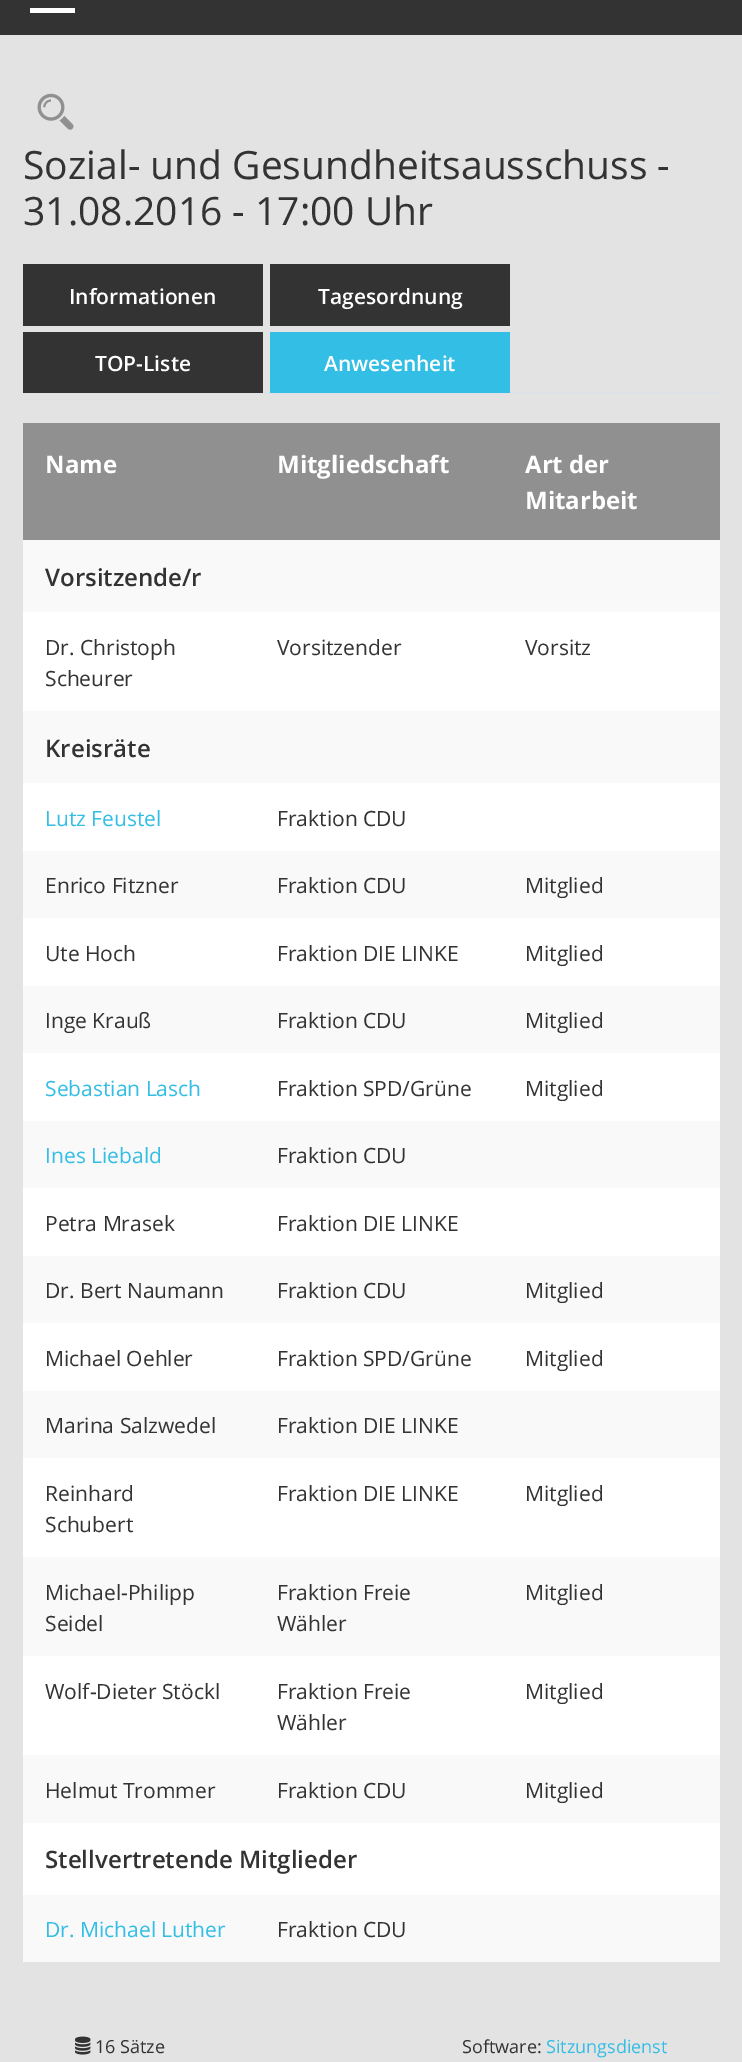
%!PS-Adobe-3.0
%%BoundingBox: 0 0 742 2062
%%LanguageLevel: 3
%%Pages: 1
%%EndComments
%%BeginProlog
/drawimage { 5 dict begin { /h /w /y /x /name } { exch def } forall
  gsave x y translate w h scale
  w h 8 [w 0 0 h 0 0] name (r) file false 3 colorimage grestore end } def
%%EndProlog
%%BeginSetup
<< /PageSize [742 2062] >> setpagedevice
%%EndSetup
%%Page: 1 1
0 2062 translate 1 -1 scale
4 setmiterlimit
0.89 setgray
0 0 742 2062 rectfill
0.2 setgray
0 0 742 35 rectfill
1 setgray
30 8 45 5 rectfill
(images/1.raw) 37 93 37 37 drawimage
0.871 0.886 0.902 setrgbcolor
23 392 697 2 rectfill
0.2 setgray
23 264 240 62 rectfill
270 264 240 62 rectfill
23 332 240 61 rectfill
0.2 0.745 0.898 setrgbcolor
270 332 240 61 rectfill
0.565 setgray
23 423 697 117 rectfill
0.976 setgray
23 540 697 72 rectfill
1 setgray
23 612 697 99 rectfill
0.976 setgray
23 711 697 72 rectfill
1 setgray
23 783 697 68 rectfill
0.976 setgray
23 851 697 67 rectfill
1 setgray
23 918 697 68 rectfill
0.976 setgray
23 986 697 67 rectfill
1 setgray
23 1053 697 68 rectfill
0.976 setgray
23 1121 697 67 rectfill
1 setgray
23 1188 697 68 rectfill
0.976 setgray
23 1256 697 67 rectfill
1 setgray
23 1323 697 68 rectfill
0.976 setgray
23 1391 697 67 rectfill
1 setgray
23 1458 697 99 rectfill
0.976 setgray
23 1557 697 99 rectfill
1 setgray
23 1656 697 99 rectfill
0.976 setgray
23 1755 697 68 rectfill
1 setgray
23 1823 697 72 rectfill
0.976 setgray
23 1895 697 67 rectfill
(images/2.raw) 75 2036 16 19 drawimage
/OpenSans-Regular [39 0 0 -39 0 0] selectfont
0.2 setgray
23 179 moveto (Sozial- und Gesundheitsausschuss -) show
23 225 moveto (31.08.2016 - 17:00 Uhr) show
/OpenSans-SemiBold [21 0 0 -21 0 0] selectfont
1 setgray
69 304 moveto (Informationen) show
318 304 moveto (Tagesordnung) show
95 371 moveto (TOP-Liste) show
324 371 moveto (Anwesenheit) show
/OpenSans-Bold [24 0 0 -24 0 0] selectfont
45 473 moveto (Name) show
277 473 moveto (Mitgliedschaft) show
525 473 moveto (Art der) show
525 509 moveto (Mitarbeit) show
/OpenSans-SemiBold [24 0 0 -24 0 0] selectfont
0.2 setgray
45 586 moveto (Vorsitzende/r) show
/OpenSans-Regular [21 0 0 -21 0 0] selectfont
45 655 moveto (Dr. Christoph) show
45 686 moveto (Scheurer) show
277 655 moveto (Vorsitzender) show
525 655 moveto (Vorsitz) show
/OpenSans-SemiBold [24 0 0 -24 0 0] selectfont
45 757 moveto (Kreisräte) show
/OpenSans-Regular [21 0 0 -21 0 0] selectfont
0.2 0.745 0.898 setrgbcolor
45 826 moveto (Lutz Feustel) show
0.2 setgray
277 826 moveto (Fraktion CDU) show
45 893 moveto (Enrico Fitzner) show
277 893 moveto (Fraktion CDU) show
525 893 moveto (Mitglied) show
45 961 moveto (Ute Hoch) show
277 961 moveto (Fraktion DIE LINKE) show
525 961 moveto (Mitglied) show
45 1028 moveto (Inge Krauß) show
277 1028 moveto (Fraktion CDU) show
525 1028 moveto (Mitglied) show
0.2 0.745 0.898 setrgbcolor
45 1096 moveto (Sebastian Lasch) show
0.2 setgray
277 1096 moveto (Fraktion SPD/Grüne) show
525 1096 moveto (Mitglied) show
0.2 0.745 0.898 setrgbcolor
45 1163 moveto (Ines Liebald) show
0.2 setgray
277 1163 moveto (Fraktion CDU) show
45 1231 moveto (Petra Mrasek) show
277 1231 moveto (Fraktion DIE LINKE) show
45 1298 moveto (Dr. Bert Naumann) show
277 1298 moveto (Fraktion CDU) show
525 1298 moveto (Mitglied) show
45 1366 moveto (Michael Oehler) show
277 1366 moveto (Fraktion SPD/Grüne) show
525 1366 moveto (Mitglied) show
45 1433 moveto (Marina Salzwedel) show
277 1433 moveto (Fraktion DIE LINKE) show
45 1501 moveto (Reinhard) show
45 1532 moveto (Schubert) show
277 1501 moveto (Fraktion DIE LINKE) show
525 1501 moveto (Mitglied) show
45 1600 moveto (Michael-Philipp) show
45 1631 moveto (Seidel) show
277 1600 moveto (Fraktion Freie) show
277 1631 moveto (Wähler) show
525 1600 moveto (Mitglied) show
45 1699 moveto (Wolf-Dieter Stöckl) show
277 1699 moveto (Fraktion Freie) show
277 1730 moveto (Wähler) show
525 1699 moveto (Mitglied) show
45 1798 moveto (Helmut Trommer) show
277 1798 moveto (Fraktion CDU) show
525 1798 moveto (Mitglied) show
/OpenSans-SemiBold [24 0 0 -24 0 0] selectfont
45 1868 moveto (Stellvertretende Mitglieder) show
/OpenSans-Regular [21 0 0 -21 0 0] selectfont
0.2 0.745 0.898 setrgbcolor
45 1937 moveto (Dr. Michael Luther) show
0.2 setgray
277 1937 moveto (Fraktion CDU) show
/OpenSans-Regular [18 0 0 -18 0 0] selectfont
95 2053 moveto (16 Sätze) show
462 2053 moveto (Software:) show
0.2 0.745 0.898 setrgbcolor
546 2053 moveto (Sitzungsdienst) show
showpage
%%EOF
